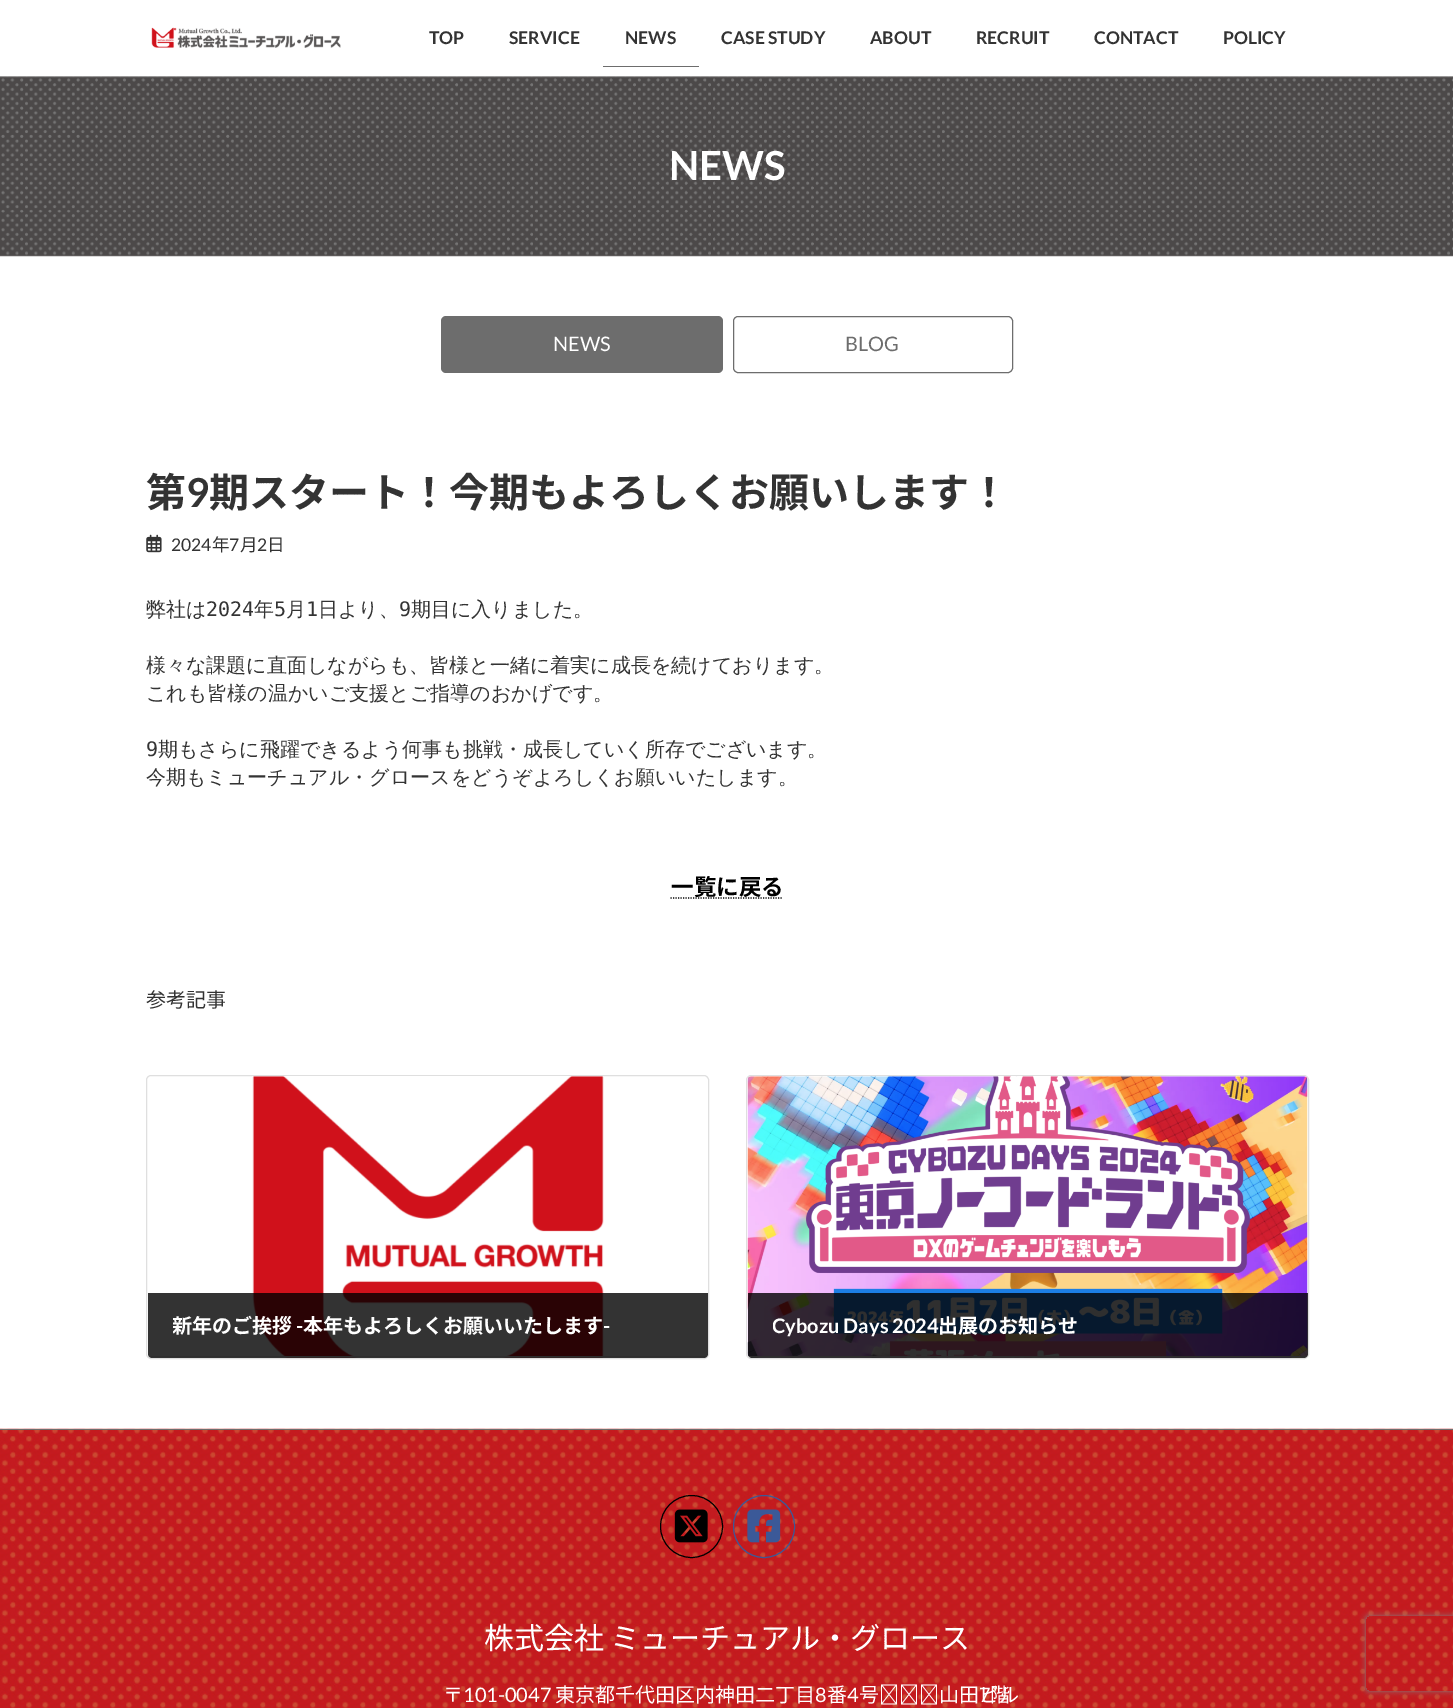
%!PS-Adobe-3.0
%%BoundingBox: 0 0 1453 1708
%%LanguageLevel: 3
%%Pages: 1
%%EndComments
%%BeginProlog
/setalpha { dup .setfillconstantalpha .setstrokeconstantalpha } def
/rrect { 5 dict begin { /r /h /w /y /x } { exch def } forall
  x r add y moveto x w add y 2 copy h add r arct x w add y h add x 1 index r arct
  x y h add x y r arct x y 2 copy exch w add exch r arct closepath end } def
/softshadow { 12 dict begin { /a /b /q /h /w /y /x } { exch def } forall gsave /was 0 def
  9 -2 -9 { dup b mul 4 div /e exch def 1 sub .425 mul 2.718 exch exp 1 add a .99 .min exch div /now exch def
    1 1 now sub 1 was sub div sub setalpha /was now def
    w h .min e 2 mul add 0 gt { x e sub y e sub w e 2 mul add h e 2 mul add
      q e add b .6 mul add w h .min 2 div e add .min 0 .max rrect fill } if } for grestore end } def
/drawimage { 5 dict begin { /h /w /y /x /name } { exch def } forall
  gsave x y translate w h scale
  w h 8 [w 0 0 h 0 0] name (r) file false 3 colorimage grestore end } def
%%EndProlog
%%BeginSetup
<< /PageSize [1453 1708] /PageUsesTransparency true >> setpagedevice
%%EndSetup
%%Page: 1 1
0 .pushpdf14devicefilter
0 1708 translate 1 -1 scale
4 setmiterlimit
1 setgray
0 0 1453 1708 rectfill
(images/1.raw) 151 27 190 21 drawimage
0.427 setgray
603 66 96 1 rectfill
(images/2.raw) 0 76 1453 181 drawimage
441 316 282 57 5 rrect fill
733.5 316.5 279 56 4.5 rrect stroke
(images/3.raw) 146 534 16 19 drawimage
0 setgray
1.2 setlinewidth
[1.25 1.25] 0 setdash
newpath 670.5 898 moveto 783 898 lineto stroke
0.875 setgray
1 setlinewidth
[] 0 setdash
146.5 1075.5 562 283 4.5 rrect stroke
(images/4.raw) 252 1076 352 282 drawimage
gsave
148 1076 560 282 4 rrect clip newpath
0.898 setgray
148 1356 560 1 rectfill
grestore
0.8 setalpha
0 setgray
newpath 148 1293 moveto 708 1293 lineto 708 1354 lineto 708 1356 706 1358 704 1358 curveto 152 1358 lineto 150 1358 148 1356 148 1354 curveto closepath fill
1 setalpha
0.875 setgray
746.5 1075.5 562 283 4.5 rrect stroke
(images/5.raw) 747 1076 561 282 drawimage
gsave
748 1076 560 282 4 rrect clip newpath
0.898 setgray
748 1356 560 1 rectfill
grestore
0.8 setalpha
0 setgray
newpath 748 1293 moveto 1308 1293 lineto 1308 1354 lineto 1308 1356 1306 1358 1304 1358 curveto 752 1358 lineto 750 1358 748 1356 748 1354 curveto closepath fill
1 setalpha
(images/6.raw) 0 1428 1453 280 drawimage
0.427 setgray
0 1429 1453 1 rectfill
0 setgray
newpath 691.5 1526.5 31 0 360 arc closepath stroke
(images/7.raw) 674 1509 34 34 drawimage
0.231 0.349 0.596 setrgbcolor
733.5 1495.5 61 62 30.5 rrect stroke
(images/8.raw) 747 1509 34 34 drawimage
gsave
newpath 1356 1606 moveto 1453 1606 lineto 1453 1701 lineto 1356 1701 lineto closepath 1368.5 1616 moveto 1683.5 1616 lineto 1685 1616 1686 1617 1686 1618.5 curveto 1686 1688.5 lineto 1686 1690 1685 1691 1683.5 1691 curveto 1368.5 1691 lineto 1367 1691 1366 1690 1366 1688.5 curveto 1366 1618.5 lineto 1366 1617 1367 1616 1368.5 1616 curveto closepath eoclip newpath
0.502 setgray
1366 1616 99 75 2.5 3 1 softshadow
grestore
/Lato-Bold [17.5 0 0 -17.5 0 0] selectfont
0.2 setgray
429 44 moveto (TOP) show
509 44 moveto (SERVICE) show
625 44 moveto (NEWS) show
721 44 moveto (CASE STUDY) show
870 44 moveto (ABOUT) show
976 44 moveto (RECRUIT) show
1094 44 moveto (CONTACT) show
1223 44 moveto (POLICY) show
/Lato-Bold [40 0 0 -40 0 0] selectfont
1 setgray
669 180 moveto (NEWS) show
/Lato-Regular [20 0 0 -20 0 0] selectfont
553 351 moveto (NEWS) show
0.427 setgray
845 351 moveto (BLOG) show
/NotoSansJP-Bold [40 0 0 -40 0 0] selectfont
0.2 setgray
146 507 moveto (第) show
/Lato-Bold [40 0 0 -40 0 0] selectfont
186 507 moveto (9) show
/NotoSansJP-Bold [40 0 0 -40 0 0] selectfont
209 507 moveto (期スタート！今期もよろしくお願いします！) show
/Lato-Regular [17.5 0 0 -17.5 0 0] selectfont
171 551 moveto (2024) show
/NotoSansJP-Regular [17.5 0 0 -17.5 0 0] selectfont
212 551 moveto (年) show
/Lato-Regular [17.5 0 0 -17.5 0 0] selectfont
229 551 moveto (7) show
/NotoSansJP-Regular [17.5 0 0 -17.5 0 0] selectfont
240 551 moveto (月) show
/Lato-Regular [17.5 0 0 -17.5 0 0] selectfont
257 551 moveto (2) show
/NotoSansJP-Regular [17.5 0 0 -17.5 0 0] selectfont
267 551 moveto (日) show
/WenQuanYiZenHei-Medium [20 0 0 -20 0 0] selectfont
146 616 moveto (弊社は) show
/DejaVuSansMono-Regular [20 0 0 -20 0 0] selectfont
206 616 moveto (2024) show
/WenQuanYiZenHei-Medium [20 0 0 -20 0 0] selectfont
254 616 moveto (年) show
/DejaVuSansMono-Regular [20 0 0 -20 0 0] selectfont
274 616 moveto (5) show
/WenQuanYiZenHei-Medium [20 0 0 -20 0 0] selectfont
286 616 moveto (月) show
/DejaVuSansMono-Regular [20 0 0 -20 0 0] selectfont
306 616 moveto (1) show
/WenQuanYiZenHei-Medium [20 0 0 -20 0 0] selectfont
318 616 moveto (日より、) show
/DejaVuSansMono-Regular [20 0 0 -20 0 0] selectfont
399 616 moveto (9) show
/WenQuanYiZenHei-Medium [20 0 0 -20 0 0] selectfont
411 616 moveto (期目に入りました。) show
146 672 moveto (様々な課題に直面しながらも、皆様と一緒に着実に成長を続けております。) show
146 700 moveto (これも皆様の温かいご支援とご指導のおかげです。) show
/DejaVuSansMono-Regular [20 0 0 -20 0 0] selectfont
146 756 moveto (9) show
/WenQuanYiZenHei-Medium [20 0 0 -20 0 0] selectfont
158 756 moveto (期もさらに飛躍できるよう何事も挑戦・成長していく所存でございます。) show
146 784 moveto (今期もミューチュアル・グロースをどうぞよろしくお願いいたします。) show
/NotoSansJP-Bold [22.5 0 0 -22.5 0 0] selectfont
0 setgray
671 895 moveto (一覧に戻る) show
/NotoSansJP-Regular [20 0 0 -20 0 0] selectfont
0.2 setgray
146 1007 moveto (参考記事) show
gsave
173 1311 510 28 rectclip
/NotoSansJP-Bold [20 0 0 -20 0 0] selectfont
1 setgray
172 1333 moveto (新年のご挨拶) show
grestore
/Lato-Bold [20 0 0 -20 0 0] selectfont
1 setgray
296 1333 moveto (-) show
/NotoSansJP-Bold [20 0 0 -20 0 0] selectfont
303 1333 moveto (本年もよろしくお願いいたします) show
/Lato-Bold [20 0 0 -20 0 0] selectfont
603 1333 moveto (-) show
gsave
773 1311 510 28 rectclip
772 1333 moveto (Cybozu Days 2024) show
grestore
/NotoSansJP-Bold [20 0 0 -20 0 0] selectfont
938 1333 moveto (出展のお知らせ) show
/NotoSansJP-Regular [30 0 0 -30 0 0] selectfont
484 1649 moveto -1 0 32 (株式会社 ミューチュアル・グロース) widthshow
/NotoSansJP-Regular [20 0 0 -20 0 0] selectfont
443 1702 moveto (〒) show
/Lato-Regular [20 0 0 -20 0 0] selectfont
463 1702 moveto (101-0047) show
/NotoSansJP-Regular [20 0 0 -20 0 0] selectfont
555 1702 moveto (東京都千代田区内神田二丁目) show
/Lato-Regular [20 0 0 -20 0 0] selectfont
815 1702 moveto (8) show
/NotoSansJP-Regular [20 0 0 -20 0 0] selectfont
827 1702 moveto (番) show
/Lato-Regular [20 0 0 -20 0 0] selectfont
847 1702 moveto (4) show
/NotoSansJP-Regular [20 0 0 -20 0 0] selectfont
859 1702 moveto (号 山田ビル) show
/Lato-Regular [20 0 0 -20 0 0] selectfont
979 1702 moveto (7) show
/NotoSansJP-Regular [20 0 0 -20 0 0] selectfont
990 1702 moveto (階) show
.poppdf14devicefilter showpage
%%EOF
